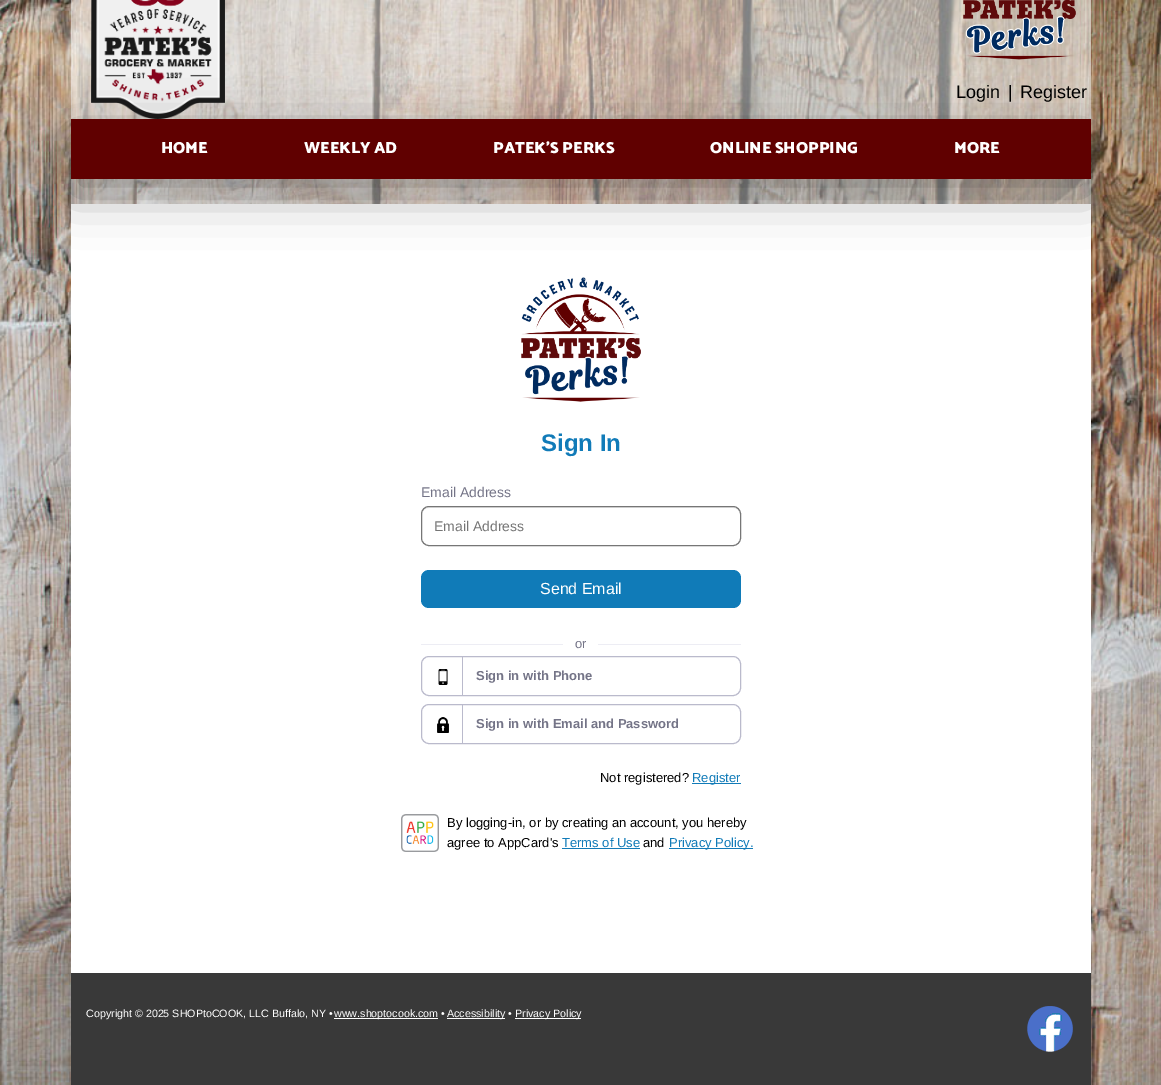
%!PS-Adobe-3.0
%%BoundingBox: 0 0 1161 1085
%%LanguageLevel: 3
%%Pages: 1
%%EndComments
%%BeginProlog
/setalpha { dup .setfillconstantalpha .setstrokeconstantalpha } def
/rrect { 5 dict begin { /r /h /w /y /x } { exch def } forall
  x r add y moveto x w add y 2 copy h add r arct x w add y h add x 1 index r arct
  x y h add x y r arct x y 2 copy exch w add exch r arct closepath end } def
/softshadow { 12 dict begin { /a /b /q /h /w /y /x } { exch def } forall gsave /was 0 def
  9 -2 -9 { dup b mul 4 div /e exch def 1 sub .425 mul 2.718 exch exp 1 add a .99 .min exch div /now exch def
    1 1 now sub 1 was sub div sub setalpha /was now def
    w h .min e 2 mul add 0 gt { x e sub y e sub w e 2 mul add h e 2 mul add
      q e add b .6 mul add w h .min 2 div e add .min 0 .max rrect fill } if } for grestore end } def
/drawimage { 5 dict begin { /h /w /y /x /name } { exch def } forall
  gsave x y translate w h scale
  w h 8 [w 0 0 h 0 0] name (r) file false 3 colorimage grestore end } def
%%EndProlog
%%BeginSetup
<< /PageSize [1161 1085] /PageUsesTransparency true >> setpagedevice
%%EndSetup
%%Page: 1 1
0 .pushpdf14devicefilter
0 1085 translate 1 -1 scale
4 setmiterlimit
1 setgray
0 0 1161 1085 rectfill
(images/1.raw) 0 0 1161 1085 drawimage
0.5 setalpha
71 0 1020 119 rectfill
1 setalpha
(images/2.raw) 91 0 134 119 drawimage
(images/3.raw) 963 0 113 60 drawimage
0.5 setalpha
71 179 1020 25 rectfill
1 setalpha
71 204 1020 769 rectfill
0 setgray
71 134 1020 60 0 25 0.35 softshadow
0.376 0 0 setrgbcolor
71 119 1020 60 rectfill
(images/4.raw) 521 277 120 125 drawimage
0.925 setgray
newpath 429 508 moveto 733 508 lineto 737 508 740 511 740 515 curveto 740 514 lineto 740 510 737 507 733 507 curveto 429 507 lineto 425 507 422 510 422 514 curveto 422 515 lineto 422 511 425 508 429 508 curveto closepath fill
0.463 setgray
421.5 506.5 319 39 7.5 rrect stroke
0.063 0.482 0.722 setrgbcolor
421 570 320 38 8 rrect fill
0.929 0.929 0.957 setrgbcolor
421 644 320 1 rectfill
1 setgray
563 644 35 1 rectfill
0.729 0.729 0.8 setrgbcolor
421.5 656.5 319 39 7.5 rrect stroke
(images/5.raw) 438 669 10 16 drawimage
462 657 1 38 rectfill
421.5 704.5 319 39 7.5 rrect stroke
(images/6.raw) 437 717 12 16 drawimage
462 705 1 38 rectfill
0.067 0.482 0.722 setrgbcolor
692 783 49 1 rectfill
(images/7.raw) 401 814 38 38 drawimage
562 848 78 1 rectfill
669 848 84 1 rectfill
0.224 setgray
71 973 1020 112 rectfill
1 setgray
334 1018 104 1 rectfill
447 1018 58 1 rectfill
515 1018 66 1 rectfill
(images/8.raw) 1027 1006 46 46 drawimage
/LiberationSans-Regular [18 0 0 -18 0 0] selectfont
0 setgray
956 98 moveto (Login) show
1008 98 moveto (|) show
1020 98 moveto (Register) show
/Catamaran-Black [16 0 0 -16 0 0] selectfont
1 setgray
161 153 moveto (HOME) show
304 153 moveto (WEEKLY AD) show
493 153 moveto (PATEK’S PERKS) show
710 153 moveto (ONLINE SHOPPING) show
954 153 moveto (MORE) show
/LiberationSans-Bold [24 0 0 -24 0 0] selectfont
0.067 0.482 0.722 setrgbcolor
541 451 moveto (Sign In) show
/LiberationSans-Regular [14 0 0 -14 0 0] selectfont
0.455 0.455 0.529 setrgbcolor
421 497 moveto (Email Address) show
0.459 setgray
434 531 moveto (Email Address) show
/LiberationSans-Regular [16 0 0 -16 0 0] selectfont
1 setgray
540 594 moveto (Send Email) show
/LiberationSans-Regular [13 0 0 -13 0 0] selectfont
0.455 0.455 0.529 setrgbcolor
575 648 moveto (or) show
/LiberationSans-Bold [13 0 0 -13 0 0] selectfont
476 680 moveto (Sign in with Phone) show
476 728 moveto (Sign in with Email and Password) show
/LiberationSans-Regular [13 0 0 -13 0 0] selectfont
0 setgray
600 782 moveto (Not registered?) show
0.067 0.482 0.722 setrgbcolor
692 782 moveto (Register) show
0 setgray
447 827 moveto (By logging-in, or by creating an account, you hereby) show
447 847 moveto (agree to AppCard's) show
0.067 0.482 0.722 setrgbcolor
562 847 moveto (Terms of Use) show
0 setgray
643 847 moveto (and) show
0.067 0.482 0.722 setrgbcolor
669 847 moveto (Privacy Policy.) show
/LiberationSans-Regular [10.7 0 0 -10.7 0 0] selectfont
1 setgray
86 1017 moveto (Copyright © 2025 SHOPtoCOOK, LLC Buffalo, NY •) show
334 1017 moveto (www.shoptocook.com •) show
447 1017 moveto (Accessibility •) show
515 1017 moveto (Privacy Policy) show
.poppdf14devicefilter showpage
%%EOF
